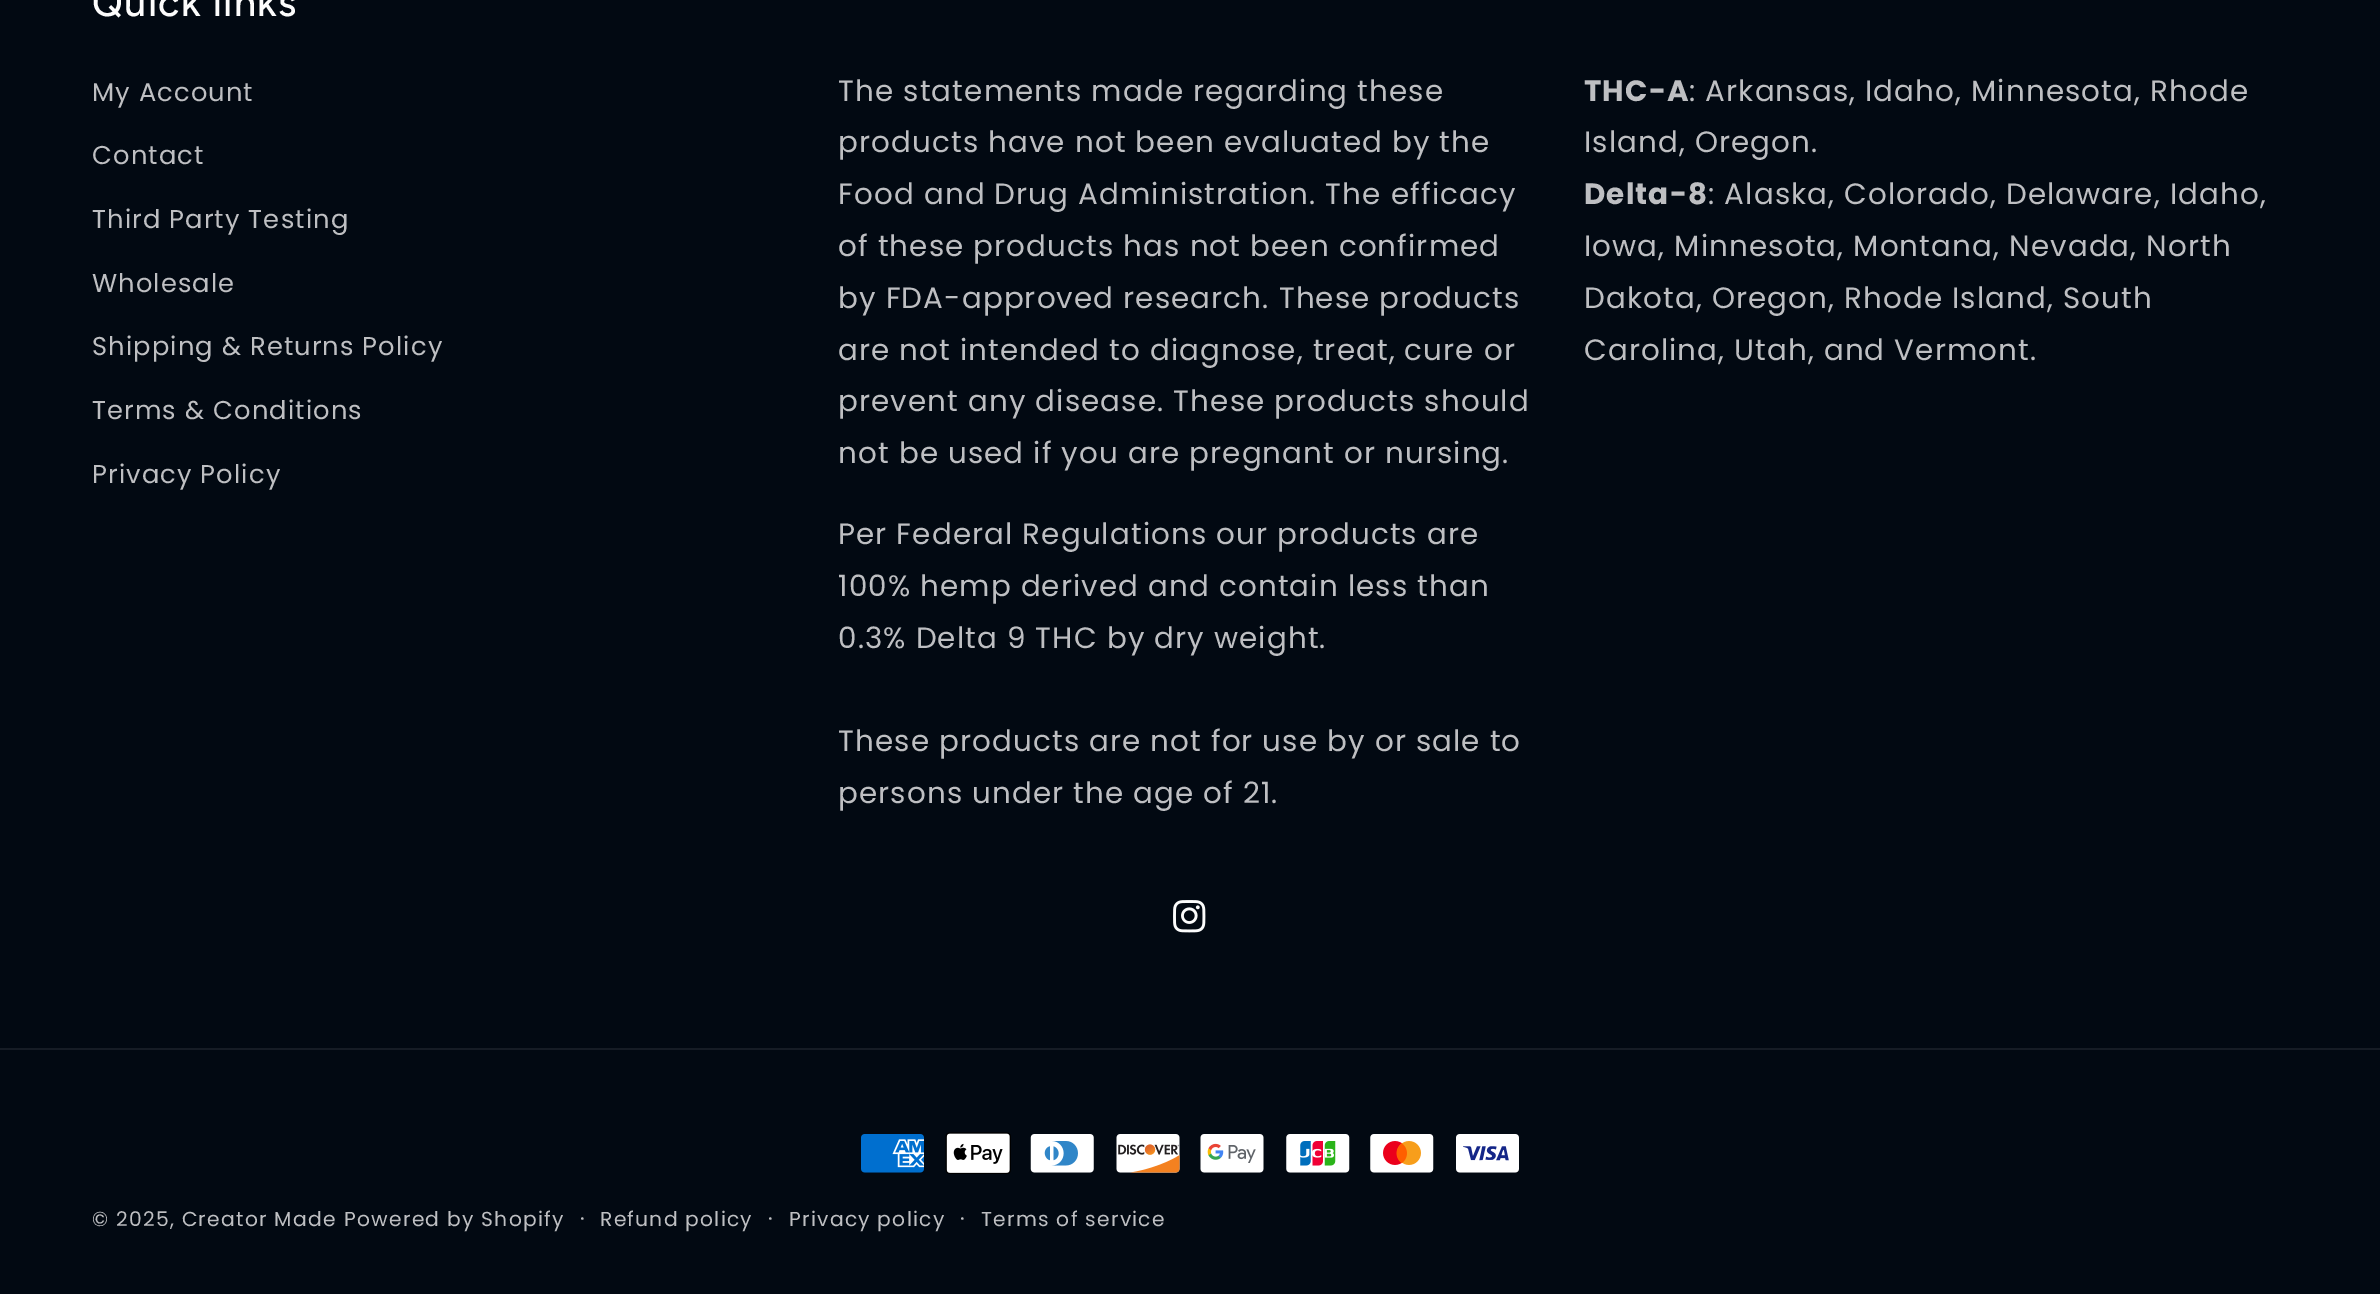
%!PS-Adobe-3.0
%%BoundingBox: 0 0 2380 1294
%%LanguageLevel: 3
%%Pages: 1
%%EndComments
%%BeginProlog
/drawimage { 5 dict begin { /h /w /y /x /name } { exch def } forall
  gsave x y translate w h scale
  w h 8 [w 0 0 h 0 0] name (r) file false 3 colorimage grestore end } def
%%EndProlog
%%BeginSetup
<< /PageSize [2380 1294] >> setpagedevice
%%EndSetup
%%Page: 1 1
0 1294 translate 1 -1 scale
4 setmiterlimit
0.008 0.035 0.071 setrgbcolor
0 0 2380 1294 rectfill
(images/1.raw) 1173 900 33 33 drawimage
0.086 0.11 0.145 setrgbcolor
0 1048 2380 2 rectfill
(images/2.raw) 861 1134 63 39 drawimage
(images/3.raw) 945 1132 66 42 drawimage
(images/4.raw) 1030 1134 64 39 drawimage
(images/5.raw) 1116 1134 64 39 drawimage
(images/6.raw) 1200 1134 64 39 drawimage
(images/7.raw) 1286 1134 64 39 drawimage
(images/8.raw) 1370 1134 64 39 drawimage
(images/9.raw) 1456 1134 63 39 drawimage
/Figtree-Medium [39.5 0 0 -39.5 0 0] selectfont
0.988 setgray
92 16 moveto 1.25 0 (Quick links) ashow
/Poppins-Regular [25.75 0 0 -25.75 0 0] selectfont
0.745 0.749 0.761 setrgbcolor
92 101 moveto 1.1 0 (My Account) ashow
92 164 moveto 1.1 0 (Contact) ashow
92 228 moveto 1.1 0 (Third Party Testing) ashow
92 292 moveto 1.1 0 (Wholesale) ashow
92 355 moveto 1.1 0 (Shipping & Returns Policy) ashow
92 419 moveto 1.1 0 (Terms & Conditions) ashow
92 483 moveto 1.1 0 (Privacy Policy) ashow
/Poppins-Regular [29.4 0 0 -29.4 0 0] selectfont
838 101 moveto 1.1 0 (The statements made regarding these) ashow
838 152 moveto 1.1 0 (products have not been evaluated by the) ashow
838 204 moveto 1.1 0 (Food and Drug Administration. The efficacy) ashow
838 256 moveto 1.1 0 (of these products has not been confirmed) ashow
838 308 moveto 1.1 0 (by FDA-approved research. These products) ashow
838 360 moveto 1.1 0 (are not intended to diagnose, treat, cure or) ashow
838 411 moveto 1.1 0 (prevent any disease. These products should) ashow
838 463 moveto 1.1 0 (not be used if you are pregnant or nursing.) ashow
838 544 moveto 1.1 0 (Per Federal Regulations our products are) ashow
838 596 moveto 1.1 0 (100% hemp derived and contain less than) ashow
838 648 moveto 1.1 0 (0.3% Delta 9 THC by dry weight.) ashow
838 751 moveto 1.1 0 (These products are not for use by or sale to) ashow
838 803 moveto 1.1 0 (persons under the age of 21.) ashow
/Poppins-Bold [29.4 0 0 -29.4 0 0] selectfont
1584 101 moveto 1.1 0 (THC-A) ashow
/Poppins-Regular [29.4 0 0 -29.4 0 0] selectfont
1689 101 moveto 1.1 0 (: Arkansas, Idaho, Minnesota, Rhode) ashow
1584 152 moveto 1.1 0 (Island, Oregon.) ashow
/Poppins-Bold [29.4 0 0 -29.4 0 0] selectfont
1584 204 moveto 1.1 0 (Delta-8) ashow
/Poppins-Regular [29.4 0 0 -29.4 0 0] selectfont
1708 204 moveto 1.1 0 (: Alaska, Colorado, Delaware, Idaho,) ashow
1584 256 moveto 1.1 0 (Iowa, Minnesota, Montana, Nevada, North) ashow
1584 308 moveto 1.1 0 (Dakota, Oregon, Rhode Island, South) ashow
1584 360 moveto 1.1 0 (Carolina, Utah, and Vermont.) ashow
/Poppins-Regular [20.25 0 0 -20.25 0 0] selectfont
92 1226 moveto 1.25 0 (© 2025, Creator Made) ashow
344 1226 moveto 1.25 0 (Powered by Shopify) ashow
/Poppins-Regular [22 0 0 -22 0 0] selectfont
580 1226 moveto 1.25 0 (·) ashow
/Poppins-Regular [20.25 0 0 -20.25 0 0] selectfont
600 1226 moveto 1.25 0 (Refund policy) ashow
/Poppins-Regular [22 0 0 -22 0 0] selectfont
768 1226 moveto 1.25 0 (·) ashow
/Poppins-Regular [20.25 0 0 -20.25 0 0] selectfont
789 1226 moveto 1.25 0 (Privacy policy) ashow
/Poppins-Regular [22 0 0 -22 0 0] selectfont
960 1226 moveto 1.25 0 (·) ashow
/Poppins-Regular [20.25 0 0 -20.25 0 0] selectfont
981 1226 moveto 1.25 0 (Terms of service) ashow
showpage
%%EOF
